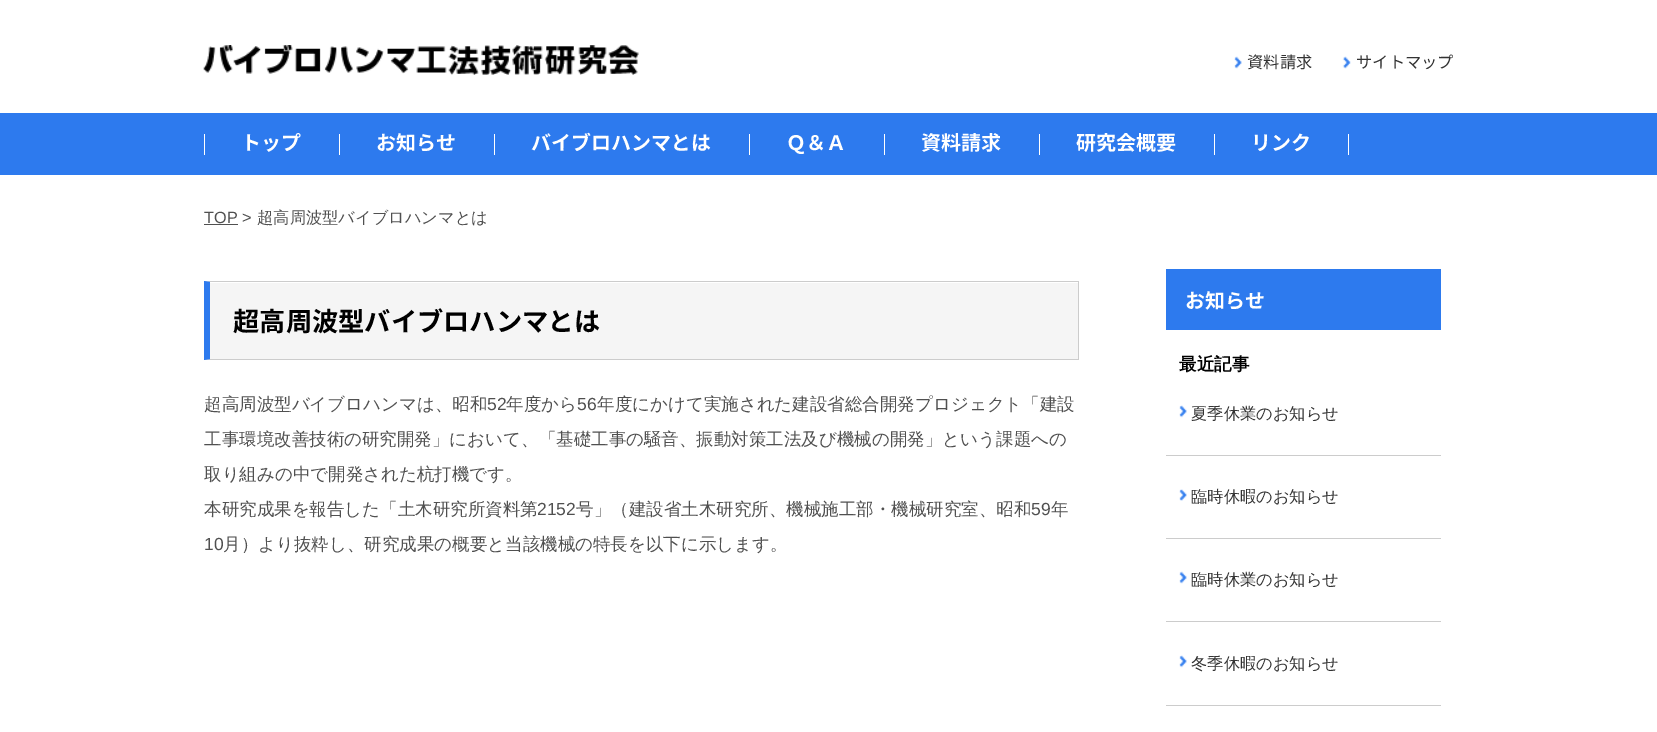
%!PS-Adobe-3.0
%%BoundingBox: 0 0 1657 732
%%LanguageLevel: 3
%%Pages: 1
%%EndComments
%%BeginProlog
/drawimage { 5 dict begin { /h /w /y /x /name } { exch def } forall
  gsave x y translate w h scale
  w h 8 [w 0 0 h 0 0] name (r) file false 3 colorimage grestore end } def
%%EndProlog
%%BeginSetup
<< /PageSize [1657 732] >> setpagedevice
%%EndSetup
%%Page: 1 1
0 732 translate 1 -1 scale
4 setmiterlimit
1 setgray
0 0 1657 732 rectfill
(images/1.raw) 203 45 436 30 drawimage
(images/2.raw) 1234 56 8 13 drawimage
(images/3.raw) 1342 56 9 13 drawimage
0.176 0.478 0.933 setrgbcolor
0 113 1657 62 rectfill
1 setgray
204 134 1 21 rectfill
339 134 1 21 rectfill
494 134 1 21 rectfill
749 134 1 21 rectfill
884 134 1 21 rectfill
1039 134 1 21 rectfill
1214 134 1 21 rectfill
1348 134 1 21 rectfill
0.314 setgray
204 224 34 1 rectfill
0.961 setgray
210 283 868 76 rectfill
0.8 setgray
newpath 204 281 moveto 1079 281 lineto 1078 282 lineto 210 282 lineto closepath fill
1078 281 1 79 rectfill
newpath 1079 360 moveto 204 360 lineto 210 359 lineto 1078 359 lineto closepath fill
0.176 0.478 0.933 setrgbcolor
newpath 204 360 moveto 204 281 lineto 210 282 lineto 210 359 lineto closepath fill
1166 269 275 61 rectfill
0.8 setgray
1166 455 275 1 rectfill
(images/4.raw) 1179 405 8 13 drawimage
1166 538 275 1 rectfill
(images/5.raw) 1179 489 8 12 drawimage
1166 621 275 1 rectfill
(images/2.raw) 1179 571 8 13 drawimage
1166 705 275 1 rectfill
(images/4.raw) 1179 655 8 13 drawimage
/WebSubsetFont-Regular [16.25 0 0 -16.25 0 0] selectfont
0.2 setgray
1247 68 moveto (資料請求) show
1356 68 moveto (サイトマップ) show
/NotoSansCJKJP-Bold [20 0 0 -20 0 0] selectfont
1 setgray
241 150 moveto (トップ) show
376 150 moveto (お知らせ) show
531 150 moveto (バイブロハンマとは) show
786 150 moveto (Ｑ＆Ａ) show
921 150 moveto (資料請求) show
1076 150 moveto (研究会概要) show
1251 150 moveto (リンク) show
/LiberationSans-Regular [16.25 0 0 -16.25 0 0] selectfont
0.314 setgray
204 223 moveto (TOP) show
242 223 moveto (>) show
/WenQuanYiZenHei-Medium [16.25 0 0 -16.25 0 0] selectfont
257 223 moveto (超高周波型バイブロハンマとは) show
/NotoSansCJKJP-Bold [26.25 0 0 -26.25 0 0] selectfont
0 setgray
233 331 moveto (超高周波型バイブロハンマとは) show
/WenQuanYiZenHei-Medium [17.5 0 0 -17.5 0 0] selectfont
0.314 setgray
204 410 moveto (超高周波型バイブロハンマは、昭和) show
/LiberationSans-Regular [17.5 0 0 -17.5 0 0] selectfont
487 410 moveto (52) show
/WenQuanYiZenHei-Medium [17.5 0 0 -17.5 0 0] selectfont
506 410 moveto (年度から) show
/LiberationSans-Regular [17.5 0 0 -17.5 0 0] selectfont
577 410 moveto (56) show
/WenQuanYiZenHei-Medium [17.5 0 0 -17.5 0 0] selectfont
597 410 moveto (年度にかけて実施された建設省総合開発プロジェクト「建設) show
204 445 moveto (工事環境改善技術の研究開発」において、「基礎工事の騒音、振動対策工法及び機械の開発」という課題への) show
204 480 moveto (取り組みの中で開発された杭打機です。) show
204 515 moveto (本研究成果を報告した「土木研究所資料第) show
/LiberationSans-Regular [17.5 0 0 -17.5 0 0] selectfont
537 515 moveto (2152) show
/WenQuanYiZenHei-Medium [17.5 0 0 -17.5 0 0] selectfont
576 515 moveto (号」（建設省土木研究所、機械施工部・機械研究室、昭和) show
/LiberationSans-Regular [17.5 0 0 -17.5 0 0] selectfont
1031 515 moveto (59) show
/WenQuanYiZenHei-Medium [17.5 0 0 -17.5 0 0] selectfont
1051 515 moveto (年) show
/LiberationSans-Regular [17.5 0 0 -17.5 0 0] selectfont
204 550 moveto (10) show
/WenQuanYiZenHei-Medium [17.5 0 0 -17.5 0 0] selectfont
223 550 moveto (月）より抜粋し、研究成果の概要と当該機械の特長を以下に示します。) show
/NotoSansCJKJP-Bold [20 0 0 -20 0 0] selectfont
1 setgray
1185 308 moveto (お知らせ) show
/WenQuanYiZenHei-Bold [17.5 0 0 -17.5 0 0] selectfont
0 setgray
1179 370 moveto (最近記事) show
/WenQuanYiZenHei-Medium [16.25 0 0 -16.25 0 0] selectfont
0.2 setgray
1191 419 moveto (夏季休業のお知らせ) show
1191 502 moveto (臨時休暇のお知らせ) show
1191 585 moveto (臨時休業のお知らせ) show
1191 669 moveto (冬季休暇のお知らせ) show
showpage
%%EOF
